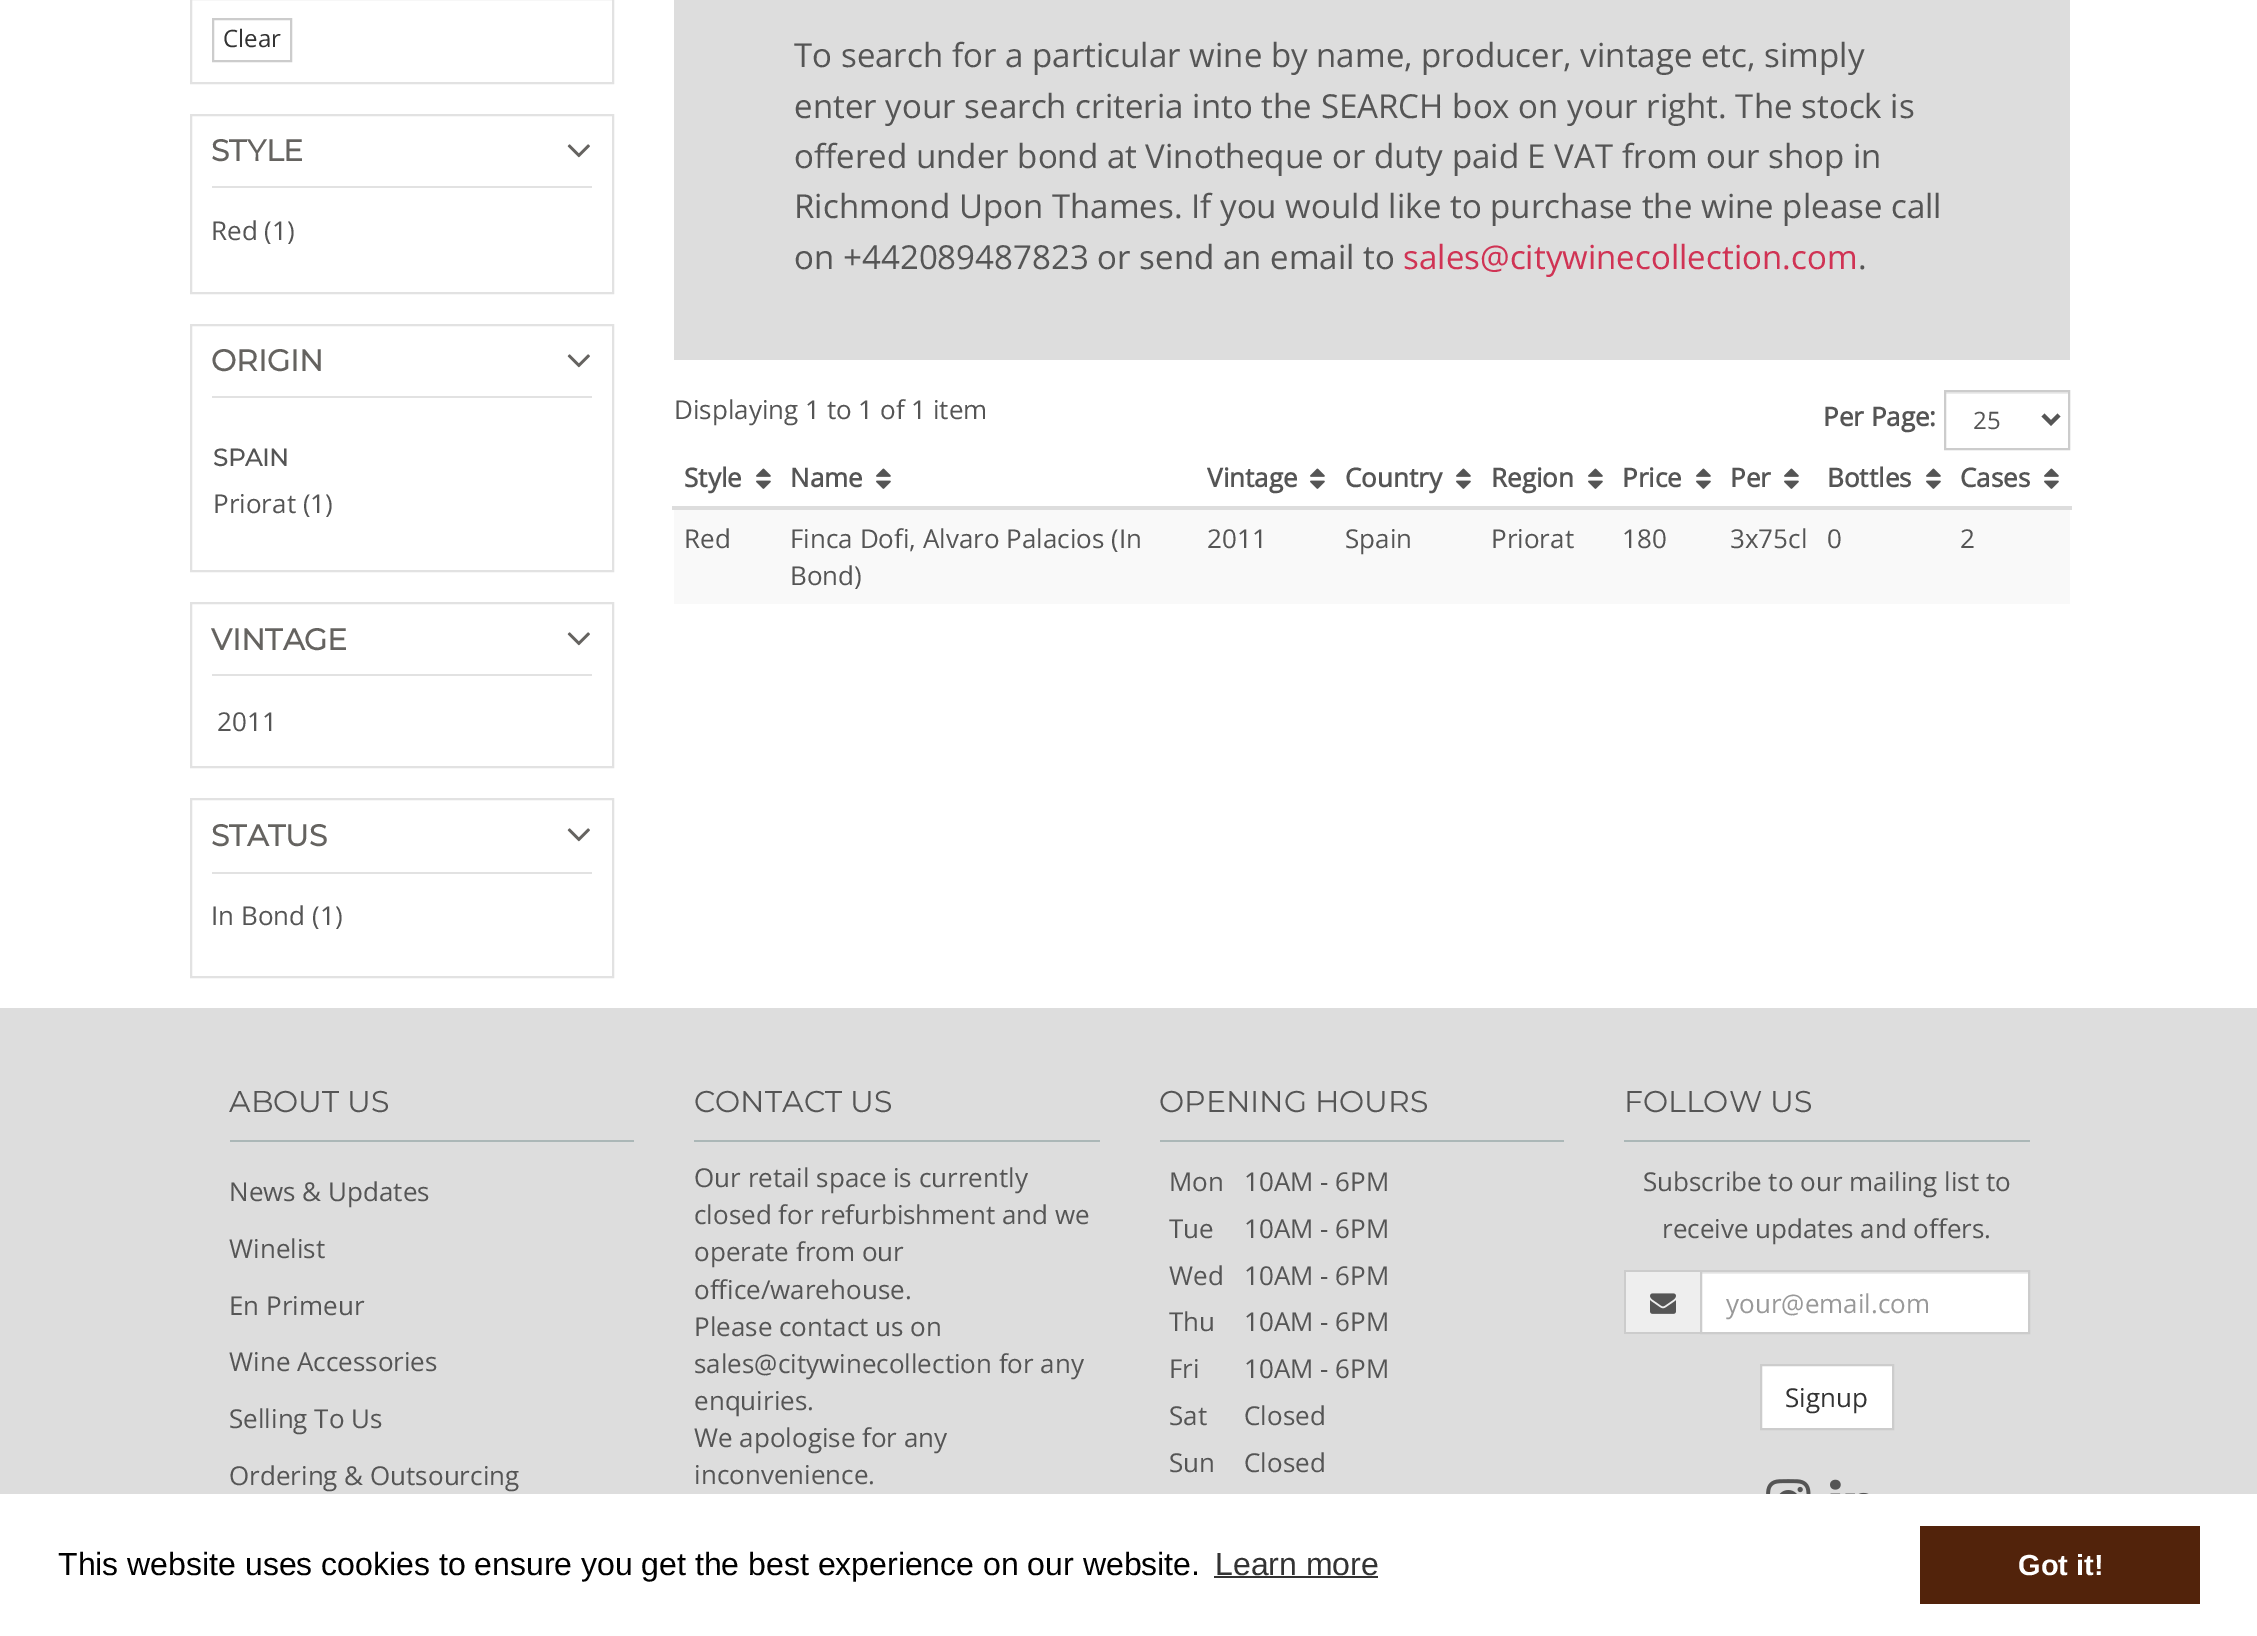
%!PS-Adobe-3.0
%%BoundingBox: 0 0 2257 1636
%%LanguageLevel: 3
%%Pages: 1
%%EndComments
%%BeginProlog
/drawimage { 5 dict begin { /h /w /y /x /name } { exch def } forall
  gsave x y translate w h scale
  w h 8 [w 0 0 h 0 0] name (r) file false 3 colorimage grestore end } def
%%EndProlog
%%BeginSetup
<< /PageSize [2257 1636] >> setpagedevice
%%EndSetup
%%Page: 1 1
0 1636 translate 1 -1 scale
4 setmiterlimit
1 setgray
0 0 2257 1636 rectfill
0.886 setgray
2 setlinewidth
191 -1 422 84 rectstroke
0.8 setgray
213 19 78 42 rectstroke
0.886 setgray
191 115 422 178 rectstroke
(images/1.raw) 567 144 23 14 drawimage
212 186 380 2 rectfill
191 325 422 246 rectstroke
(images/1.raw) 567 354 23 14 drawimage
212 396 380 2 rectfill
191 603 422 164 rectstroke
(images/1.raw) 567 632 23 14 drawimage
212 674 380 2 rectfill
191 799 422 178 rectstroke
(images/1.raw) 567 828 23 14 drawimage
212 872 380 2 rectfill
0.867 setgray
674 0 1396 360 rectfill
0.925 setgray
1946 392 122 2 rectfill
0.8 setgray
1945 391 124 58 rectstroke
0.333 setgray
4 setlinewidth
newpath 2043 415 moveto 2051 423 lineto 2059 415 lineto stroke
(images/2.raw) 756 468 15 21 drawimage
(images/2.raw) 876 468 15 21 drawimage
(images/2.raw) 1310 468 15 21 drawimage
(images/2.raw) 1456 468 15 21 drawimage
(images/2.raw) 1588 468 15 21 drawimage
(images/2.raw) 1696 468 15 21 drawimage
(images/2.raw) 1784 468 15 21 drawimage
(images/2.raw) 1926 468 15 21 drawimage
0.867 setgray
672 506 1400 4 rectfill
(images/2.raw) 2044 468 15 21 drawimage
0.976 setgray
674 510 1396 94 rectfill
0.867 setgray
0 1008 2257 486 rectfill
0.671 0.718 0.718 setrgbcolor
230 1140 404 2 rectfill
694 1140 406 2 rectfill
1160 1140 404 2 rectfill
1624 1140 406 2 rectfill
0.933 setgray
1626 1272 74 60 rectfill
0.8 setgray
1624 1270 76 2 rectfill
1624 1332 76 2 rectfill
1624 1270 2 64 rectfill
(images/3.raw) 1650 1293 26 21 drawimage
1 setgray
1702 1274 326 58 rectfill
0.925 setgray
1702 1272 326 2 rectfill
0.8 setgray
2 setlinewidth
1701 1271 328 62 rectstroke
1 setgray
newpath 1761 1365 moveto 1893 1365 lineto 1893 1429 lineto 1761 1429 lineto closepath gsave fill grestore
0.8 setgray
stroke
(images/4.raw) 1766 1479 45 15 drawimage
(images/5.raw) 1830 1479 39 15 drawimage
0.2 setgray
1214 1576 164 2 rectfill
0.322 0.137 0.043 setrgbcolor
1920 1526 280 78 rectfill
/OpenSans-Regular [24 0 0 -24 0 0] selectfont
0.2 setgray
223 47 moveto (Clear) show
/Montserrat-Bold [30 0 0 -30 0 0] selectfont
0.396 0.388 0.376 setrgbcolor
211 161 moveto (STYLE) show
/OpenSans-Regular [26 0 0 -26 0 0] selectfont
0.333 setgray
211 240 moveto (Red \(1\)) show
/Montserrat-Bold [30 0 0 -30 0 0] selectfont
0.396 0.388 0.376 setrgbcolor
211 371 moveto (ORIGIN) show
/Montserrat-Bold [24 0 0 -24 0 0] selectfont
0.333 setgray
213 466 moveto (SPAIN) show
/OpenSans-Regular [26 0 0 -26 0 0] selectfont
213 513 moveto (Priorat \(1\)) show
/Montserrat-Bold [30 0 0 -30 0 0] selectfont
0.396 0.388 0.376 setrgbcolor
211 650 moveto (VINTAGE) show
/OpenSans-Regular [26 0 0 -26 0 0] selectfont
0.333 setgray
217 731 moveto (2011) show
/Montserrat-Bold [30 0 0 -30 0 0] selectfont
0.396 0.388 0.376 setrgbcolor
211 846 moveto (STATUS) show
/OpenSans-Regular [26 0 0 -26 0 0] selectfont
0.333 setgray
211 925 moveto (In Bond \(1\)) show
/OpenSans-Regular [33.1 0 0 -33.1 0 0] selectfont
794 67 moveto (To search for a particular wine by name,) show
1421 67 moveto (producer, vintage etc, simply) show
794 118 moveto (enter your search criteria into the SEARCH box on your right. The stock is) show
794 168 moveto (offered under bond at Vinotheque or duty paid E VAT from our shop in) show
794 218 moveto (Richmond Upon Thames. If you would like to purchase the wine please call) show
794 269 moveto (on +442089487823 or send an email to) show
0.816 0.2 0.329 setrgbcolor
1403 269 moveto (sales@citywinecollection.com) show
0.333 setgray
1858 269 moveto (.) show
/OpenSans-Regular [26 0 0 -26 0 0] selectfont
674 419 moveto (Displaying 1 to 1 of 1 item) show
/OpenSans-Bold [26 0 0 -26 0 0] selectfont
1823 426 moveto (Per Page:) show
/OpenSans-Regular [24 0 0 -24 0 0] selectfont
1973 429 moveto (25) show
/OpenSans-Bold [26 0 0 -26 0 0] selectfont
684 487 moveto (Style) show
790 487 moveto (Name) show
1207 487 moveto (Vintage) show
1345 487 moveto (Country) show
1491 487 moveto (Region) show
1622 487 moveto (Price) show
1730 487 moveto (Per) show
1827 487 moveto (Bottles) show
1960 487 moveto (Cases) show
/OpenSans-Regular [26 0 0 -26 0 0] selectfont
684 548 moveto (Red) show
790 548 moveto (Finca Dofi, Alvaro Palacios \(In) show
790 585 moveto (Bond\)) show
1207 548 moveto (2011) show
1345 548 moveto (Spain) show
1491 548 moveto (Priorat) show
1622 548 moveto (180) show
1730 548 moveto (3x75cl) show
1827 548 moveto (0) show
1960 548 moveto (2) show
/Montserrat-Thin [30 0 0 -30 0 0] selectfont
229 1112 moveto (ABOUT US) show
/OpenSans-Regular [26 0 0 -26 0 0] selectfont
229 1201 moveto (News & Updates) show
229 1258 moveto (Winelist) show
229 1315 moveto (En Primeur) show
229 1371 moveto (Wine Accessories) show
229 1428 moveto (Selling To Us) show
229 1485 moveto (Ordering & Outsourcing) show
/Montserrat-Thin [30 0 0 -30 0 0] selectfont
694 1112 moveto (CONTACT US) show
/OpenSans-Regular [26 0 0 -26 0 0] selectfont
694 1187 moveto (Our retail space is currently) show
694 1224 moveto (closed for refurbishment and we) show
694 1261 moveto (operate from our) show
694 1299 moveto (office/warehouse.) show
694 1336 moveto (Please contact us on) show
694 1373 moveto (sales@citywinecollection for any) show
694 1410 moveto (enquiries.) show
694 1447 moveto (We apologise for any) show
694 1484 moveto (inconvenience.) show
/Montserrat-Thin [30 0 0 -30 0 0] selectfont
1159 1112 moveto (OPENING HOURS) show
/OpenSans-Regular [26 0 0 -26 0 0] selectfont
1169 1191 moveto (Mon) show
1244 1191 moveto (10AM - 6PM) show
1169 1238 moveto (Tue) show
1244 1238 moveto (10AM - 6PM) show
1169 1285 moveto (Wed) show
1244 1285 moveto (10AM - 6PM) show
1169 1331 moveto (Thu) show
1244 1331 moveto (10AM - 6PM) show
1169 1378 moveto (Fri) show
1244 1378 moveto (10AM - 6PM) show
1169 1425 moveto (Sat) show
1244 1425 moveto (Closed) show
1169 1472 moveto (Sun) show
1244 1472 moveto (Closed) show
/Montserrat-Thin [30 0 0 -30 0 0] selectfont
1624 1112 moveto (FOLLOW US) show
/OpenSans-Regular [26 0 0 -26 0 0] selectfont
1643 1191 moveto (Subscribe to our mailing list to) show
1662 1238 moveto (receive updates and offers.) show
0.6 setgray
1726 1313 moveto (your@email.com) show
0.2 setgray
1785 1407 moveto (Signup) show
/LiberationSans-Regular [32 0 0 -32 0 0] selectfont
0 setgray
58 1575 moveto (This website uses cookies to ensure you get the best experience on our website.) show
0.2 setgray
1215 1575 moveto (Learn more) show
/LiberationSans-Bold [29 0 0 -29 0 0] selectfont
1 setgray
2018 1575 moveto (Got it!) show
showpage
%%EOF
